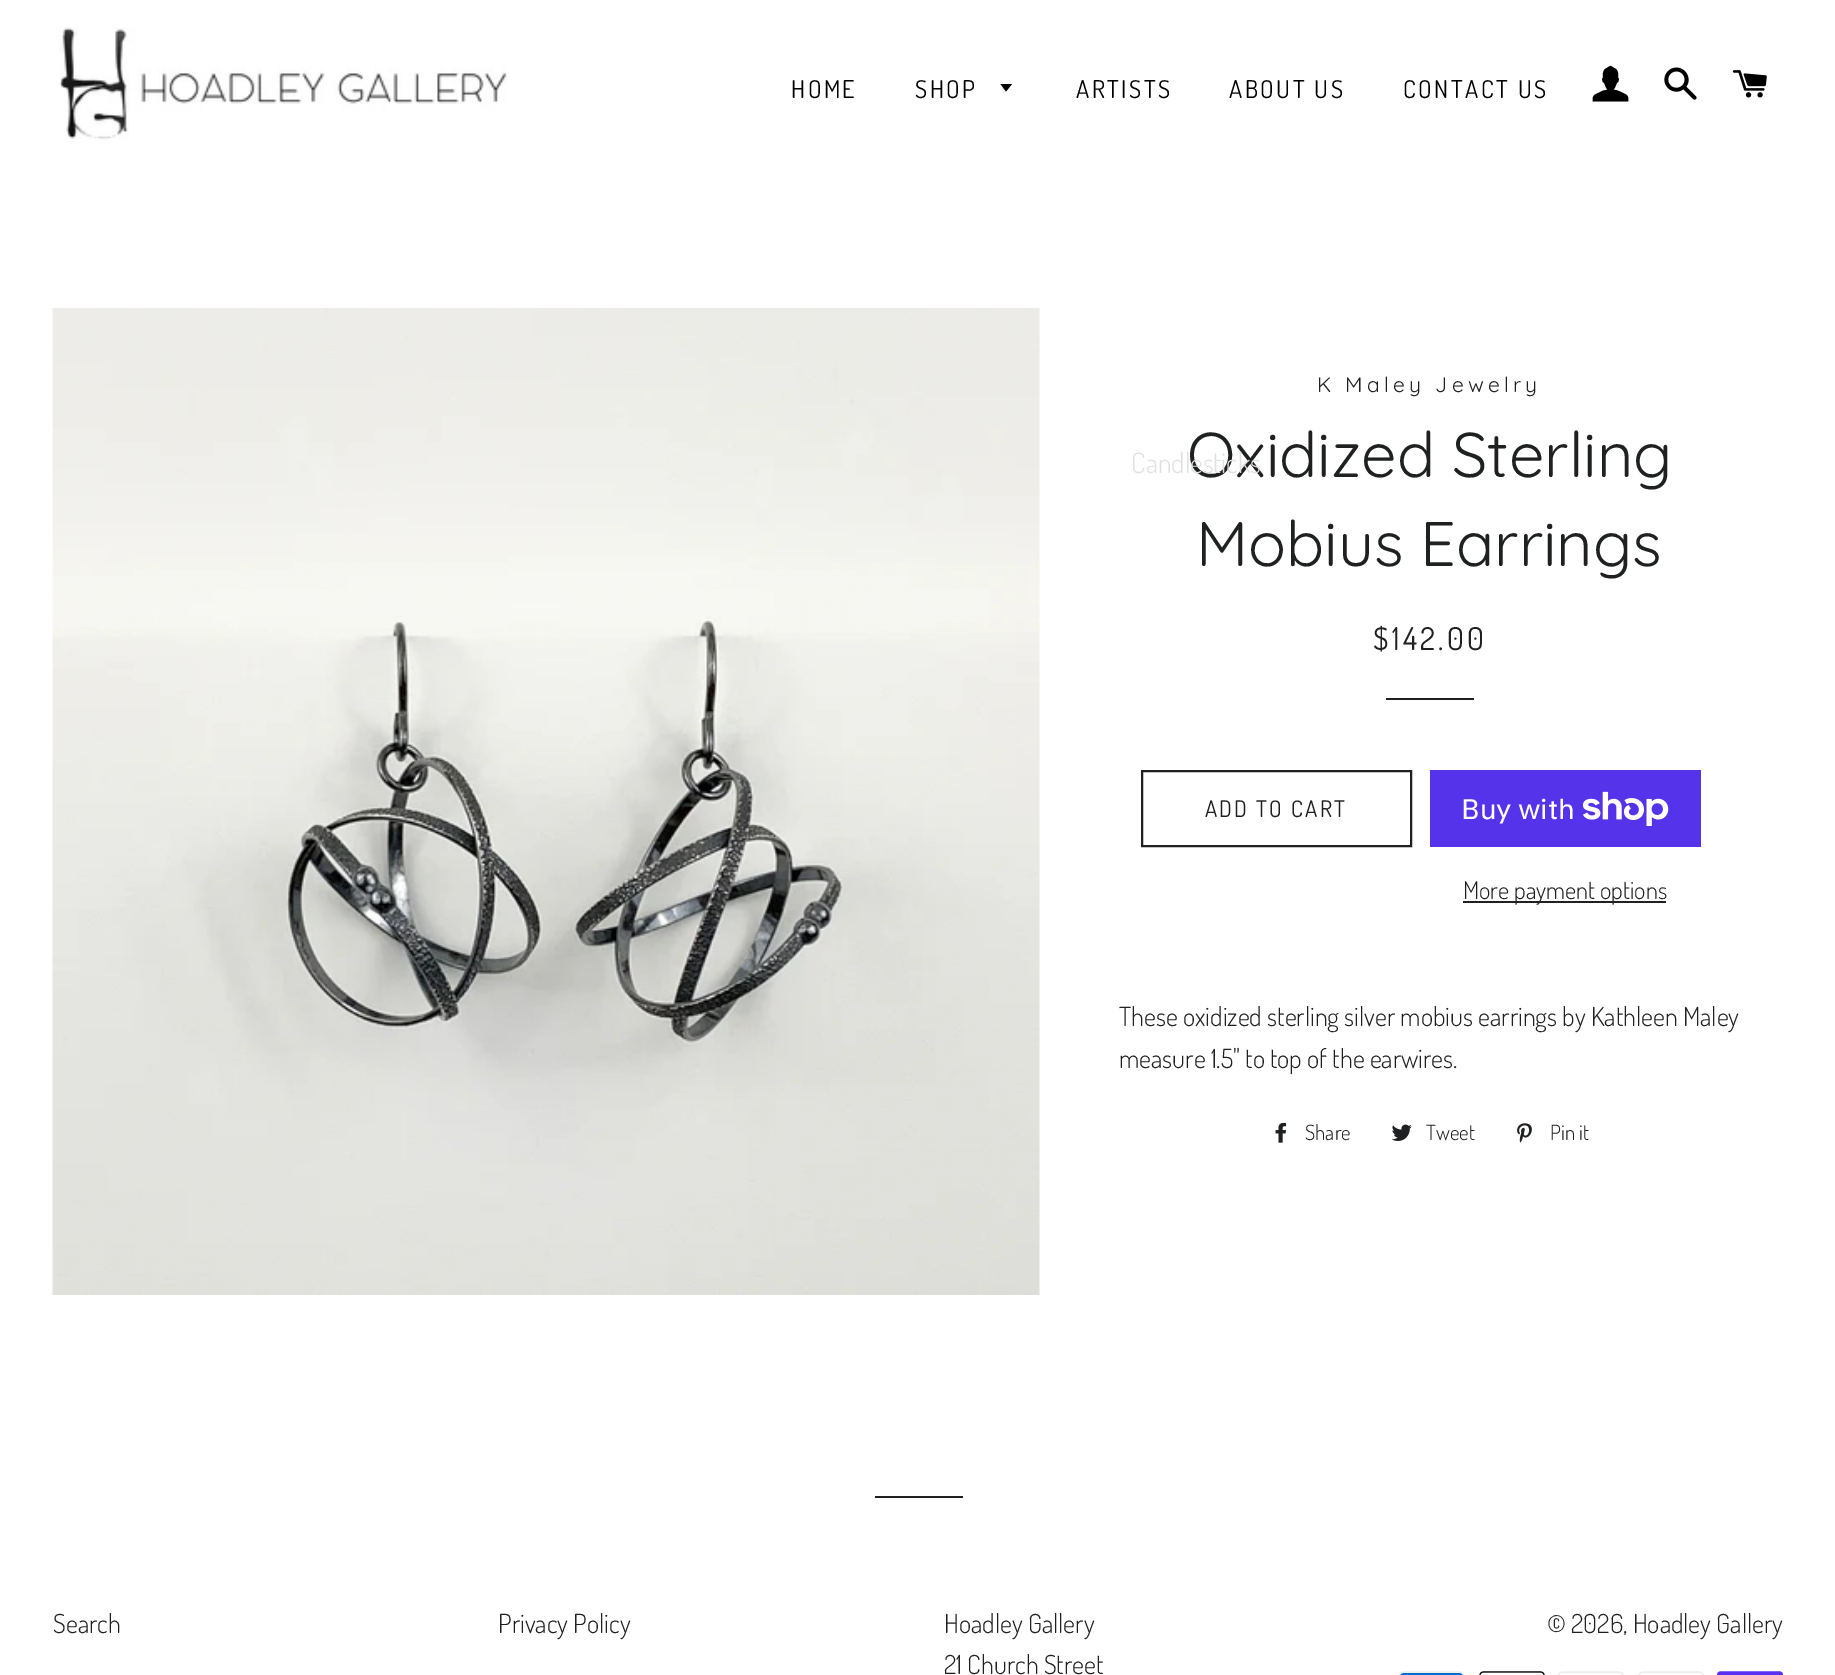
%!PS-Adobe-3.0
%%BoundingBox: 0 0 1835 1675
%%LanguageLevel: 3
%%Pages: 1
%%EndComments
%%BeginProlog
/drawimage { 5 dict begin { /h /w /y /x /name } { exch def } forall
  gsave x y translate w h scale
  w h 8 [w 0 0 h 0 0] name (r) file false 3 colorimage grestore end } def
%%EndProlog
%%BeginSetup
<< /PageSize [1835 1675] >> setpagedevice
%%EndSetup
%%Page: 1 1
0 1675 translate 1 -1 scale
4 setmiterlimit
1 setgray
0 0 1835 1675 rectfill
(images/1.raw) 59 27 448 113 drawimage
(images/2.raw) 1592 65 37 37 drawimage
(images/3.raw) 1664 67 33 33 drawimage
(images/4.raw) 1732 70 35 28 drawimage
0 setgray
newpath 1000.5 84 moveto 1006 91.5 lineto 1012 84 lineto closepath fill
(images/5.raw) 52 308 988 987 drawimage
0.122 0.125 0.129 setrgbcolor
1386 698 88 2 rectfill
2 setlinewidth
1142 771 269 75 rectstroke
0.329 0.2 0.922 setrgbcolor
1430 770 271 77 rectfill
(images/6.raw) 1583 791 86 35 drawimage
0.122 0.125 0.129 setrgbcolor
1463 901 203 2 rectfill
(images/7.raw) 1275 1122 12 21 drawimage
(images/8.raw) 1391 1124 21 17 drawimage
(images/9.raw) 1517 1123 15 20 drawimage
875 1496 88 2 rectfill
(images/10.raw) 1398 1671 67 4 drawimage
(images/11.raw) 1479 1671 66 4 drawimage
(images/12.raw) 1558 1671 66 4 drawimage
(images/13.raw) 1638 1671 66 4 drawimage
(images/14.raw) 1717 1671 66 4 drawimage
/Dosis-Regular [24.5 0 0 -24.5 0 0] selectfont
0 setgray
791 98 moveto 2.5 0 (HOME) ashow
1076 98 moveto 2.5 0 (ARTISTS) ashow
1229 98 moveto 2.5 0 (ABOUT US) ashow
1403 98 moveto 2.5 0 (CONTACT US) ashow
915 98 moveto 2.5 0 (SHOP) ashow
/Quicksand-Regular [21 0 0 -21 0 0] selectfont
0.122 0.125 0.129 setrgbcolor
1317 392 moveto 4.25 0 (K Maley Jewelry) ashow
/Quicksand-Regular [63 0 0 -63 0 0] selectfont
1187 477 moveto (Oxidized Sterling) show
/Dosis-Light [28 0 0 -28 0 0] selectfont
0.878 setgray
1131 473 moveto (Candlesticks) show
/Quicksand-Regular [63 0 0 -63 0 0] selectfont
0.122 0.125 0.129 setrgbcolor
1196 566 moveto (Mobius Earrings) show
/Dosis-Regular [31.5 0 0 -31.5 0 0] selectfont
1373 650 moveto 3.25 0 ($142.00) ashow
/Dosis-Regular [22.75 0 0 -22.75 0 0] selectfont
1205 817 moveto 2.25 0 (ADD TO CART) ashow
/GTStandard-Regular [28 0 0 -28 0 0] selectfont
1 setgray
1461 819 moveto (Buy with) show
/Dosis-Light [24.5 0 0 -24.5 0 0] selectfont
0.122 0.125 0.129 setrgbcolor
1463 899 moveto (More payment options) show
/Dosis-Light [26.25 0 0 -26.25 0 0] selectfont
1119 1026 moveto (These oxidized sterling silver mobius earrings by Kathleen Maley) show
1119 1068 moveto (measure 1.5" to top of the earwires.) show
/Dosis-Light [21 0 0 -21 0 0] selectfont
1305 1140 moveto (Share) show
1426 1140 moveto (Tweet) show
1550 1140 moveto (Pin it) show
/Dosis-Light [26.25 0 0 -26.25 0 0] selectfont
53 1633 moveto (Search) show
498 1633 moveto (Privacy Policy) show
944 1633 moveto (Hoadley Gallery) show
944 1674 moveto (21 Church Street) show
1547 1633 moveto (© 2026, Hoadley Gallery) show
showpage
%%EOF
